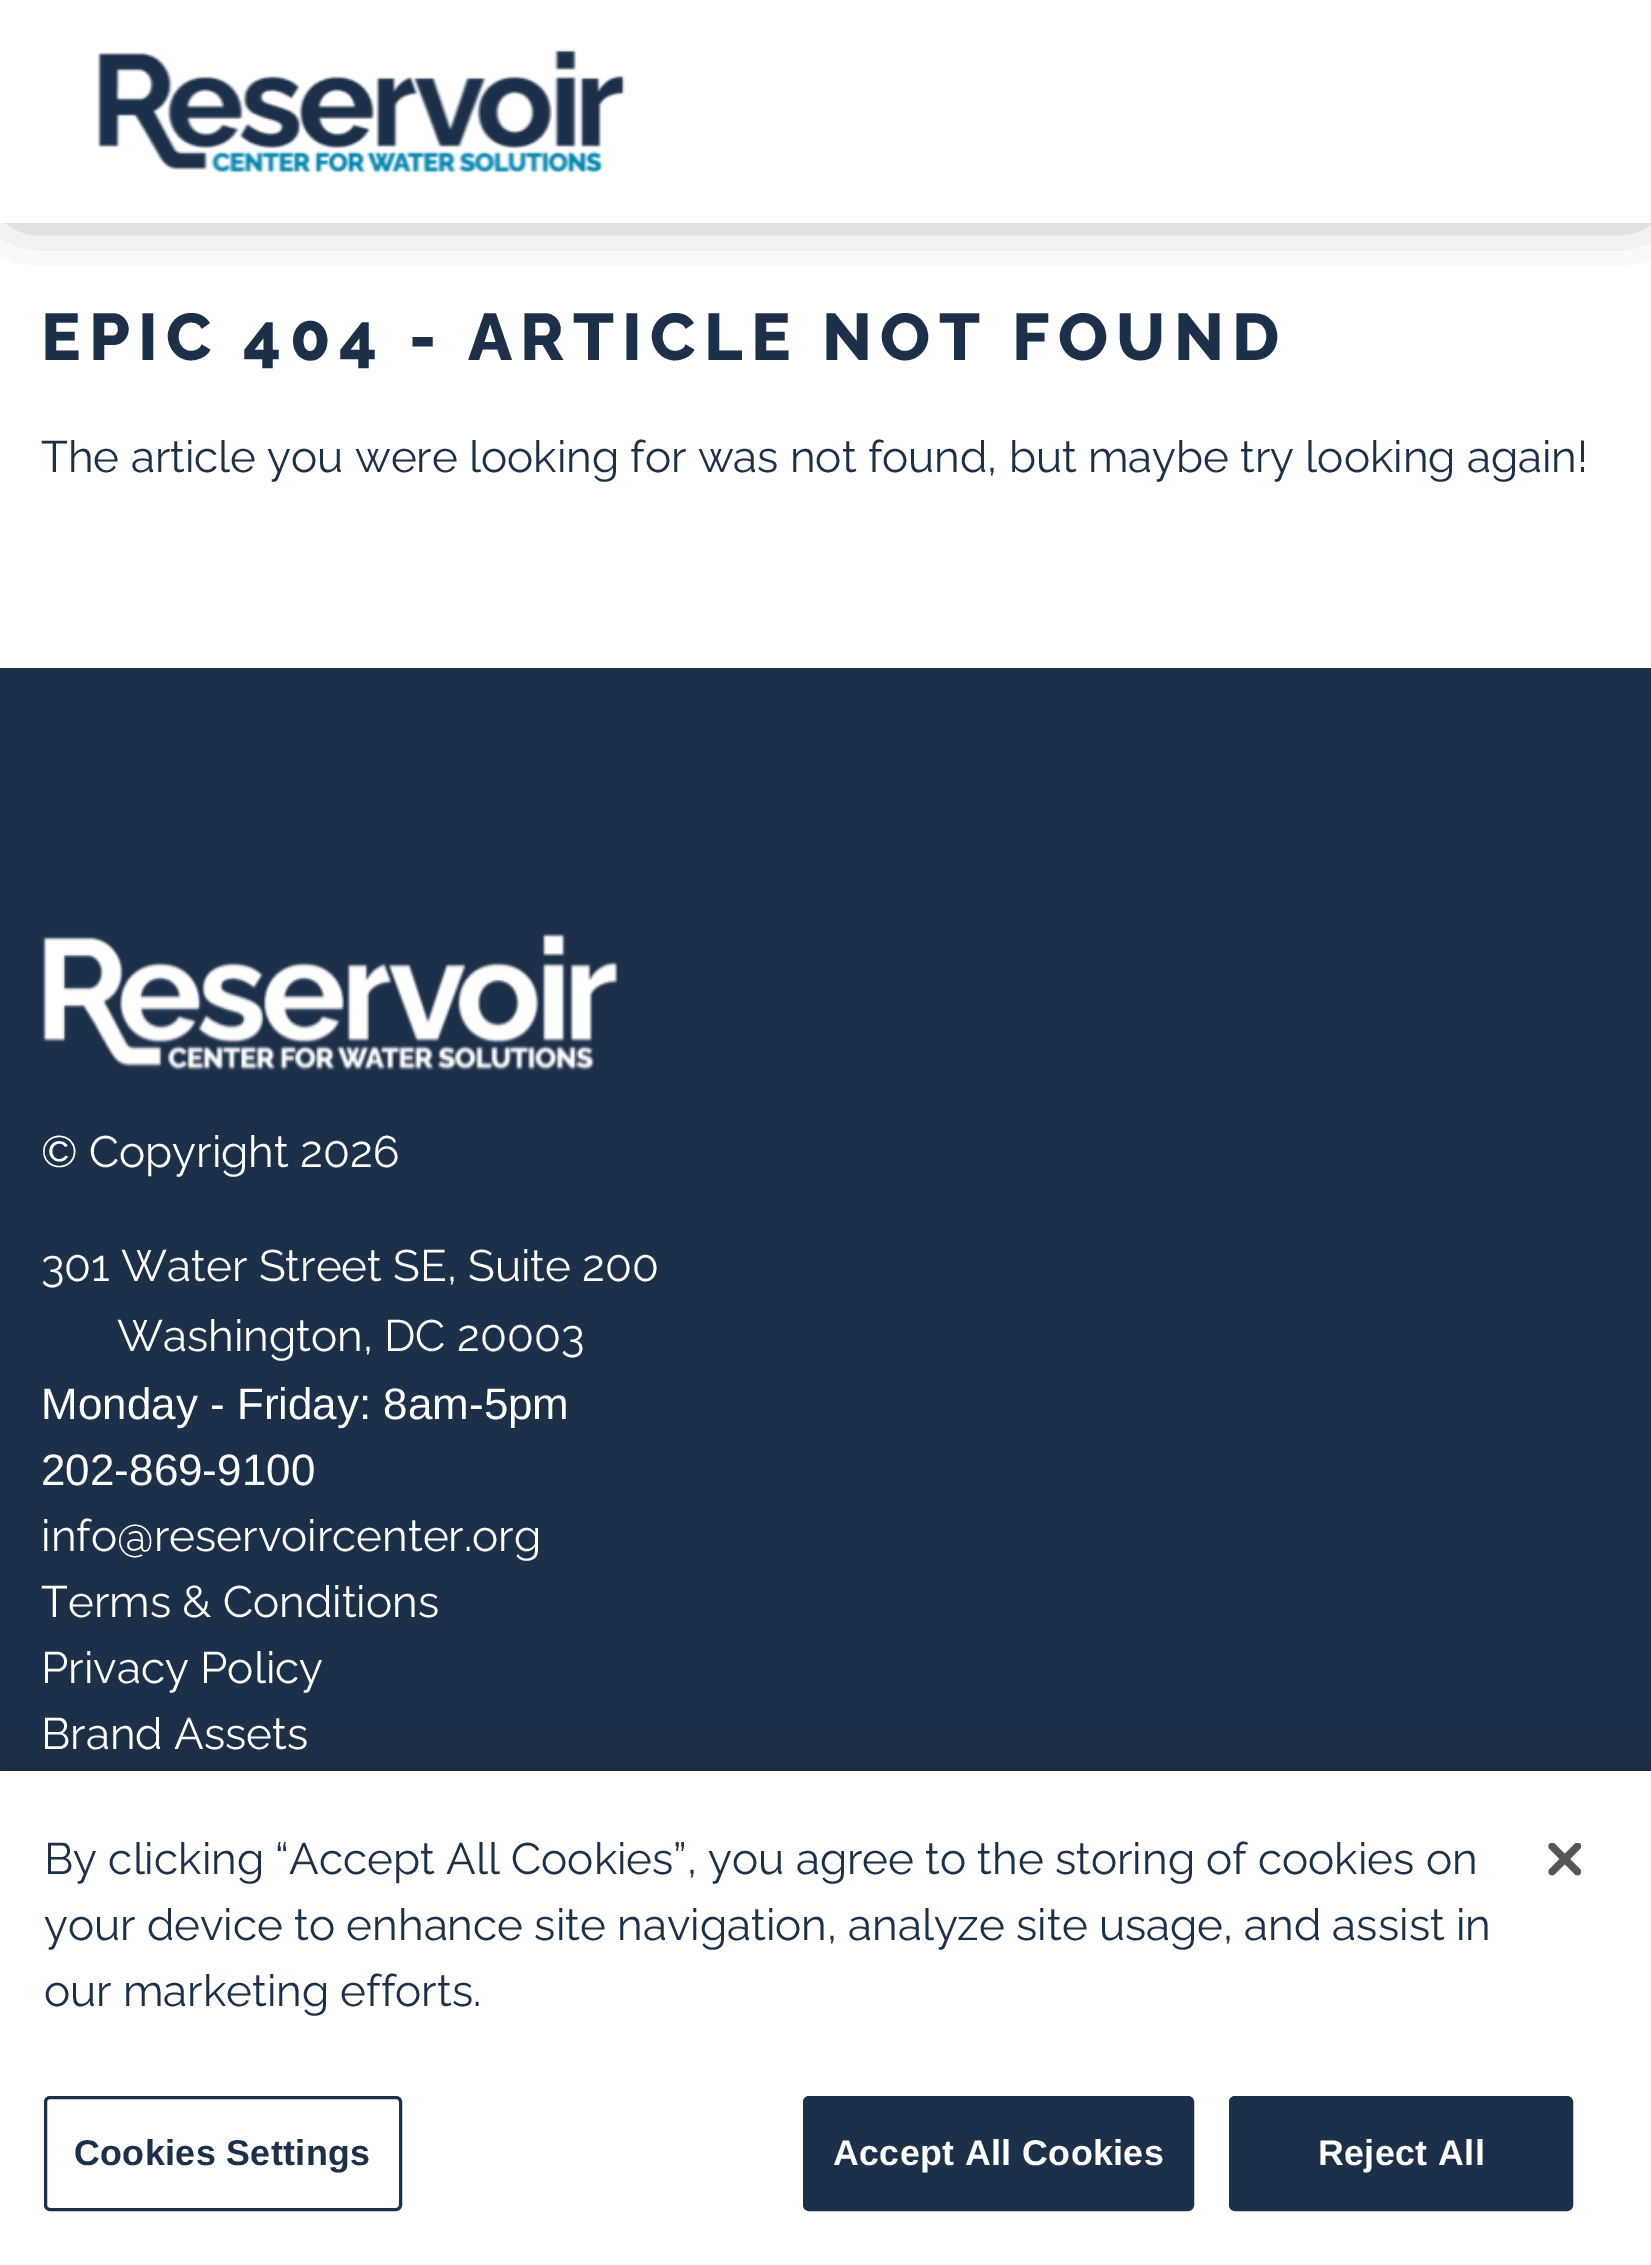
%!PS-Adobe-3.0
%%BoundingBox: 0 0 1651 2265
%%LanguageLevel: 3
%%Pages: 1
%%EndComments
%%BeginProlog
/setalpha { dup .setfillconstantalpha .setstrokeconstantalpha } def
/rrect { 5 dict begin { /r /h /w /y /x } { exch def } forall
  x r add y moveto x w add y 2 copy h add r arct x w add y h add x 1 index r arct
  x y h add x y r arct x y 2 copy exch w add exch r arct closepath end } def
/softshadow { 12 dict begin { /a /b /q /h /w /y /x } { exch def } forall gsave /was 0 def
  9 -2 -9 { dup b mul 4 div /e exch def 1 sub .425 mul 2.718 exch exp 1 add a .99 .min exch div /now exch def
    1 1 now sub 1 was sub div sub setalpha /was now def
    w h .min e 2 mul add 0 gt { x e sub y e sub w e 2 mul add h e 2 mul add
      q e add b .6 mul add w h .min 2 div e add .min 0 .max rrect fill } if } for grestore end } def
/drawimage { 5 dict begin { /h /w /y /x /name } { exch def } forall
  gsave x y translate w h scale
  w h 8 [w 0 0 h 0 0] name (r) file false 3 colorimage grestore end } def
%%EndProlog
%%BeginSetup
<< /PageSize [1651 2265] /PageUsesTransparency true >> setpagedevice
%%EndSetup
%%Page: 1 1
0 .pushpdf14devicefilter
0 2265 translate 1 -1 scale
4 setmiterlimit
1 setgray
0 0 1651 2265 rectfill
0 setgray
22 14 1614 184 0 30 0.75 softshadow
1 setgray
0 0 1651 223 rectfill
(images/1.raw) 97 49 528 125 drawimage
0.114 0.188 0.29 setrgbcolor
0 668 1651 1103 rectfill
(images/2.raw) 42 933 577 138 drawimage
0 setgray
0 1771 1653 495 0 25 0.2 softshadow
1 setgray
0 1771 1651 494 rectfill
0.114 0.188 0.29 setrgbcolor
3 setlinewidth
45.5 2097.5 355 112 4.5 rrect stroke
804.5 2097.5 388 112 4.5 rrect gsave fill grestore
stroke
1230.5 2097.5 341 112 4.5 rrect gsave fill grestore
stroke
(images/3.raw) 1548 1843 33 33 drawimage
/Raleway-ExtraBold [66 0 0 -66 0 0] selectfont
41 360 moveto 8.25 0 (EPIC 404 - ARTICLE NOT FOUND) ashow
/Raleway-Regular [44 0 0 -44 0 0] selectfont
41 472 moveto (The article you were looking for was not found, but maybe try looking again!) show
1 setgray
41 1167 moveto (© Copyright 2026) show
41 1281 moveto (301 Water Street SE, Suite 200) show
117 1351 moveto (Washington, DC 20003) show
/LiberationSans-Regular [44 0 0 -44 0 0] selectfont
41 1419 moveto (Monday - Friday: 8am-5pm) show
41 1485 moveto (202-869-9100) show
/Raleway-Regular [44 0 0 -44 0 0] selectfont
41 1551 moveto (info@reservoircenter.org) show
41 1617 moveto (Terms & Conditions) show
41 1683 moveto (Privacy Policy) show
41 1749 moveto (Brand Assets) show
0.114 0.188 0.29 setrgbcolor
44 1874 moveto (By clicking “Accept All Cookies”, you agree to the storing of cookies on) show
44 1940 moveto (your device to enhance site navigation, analyze site usage, and assist in) show
44 2006 moveto (our marketing efforts.) show
/LiberationSans-Bold [35.75 0 0 -35.75 0 0] selectfont
74 2165 moveto 0.4 0 (Cookies Settings) ashow
1 setgray
833 2165 moveto 0.4 0 (Accept All Cookies) ashow
1318 2165 moveto 0.4 0 (Reject All) ashow
.poppdf14devicefilter showpage
%%EOF
